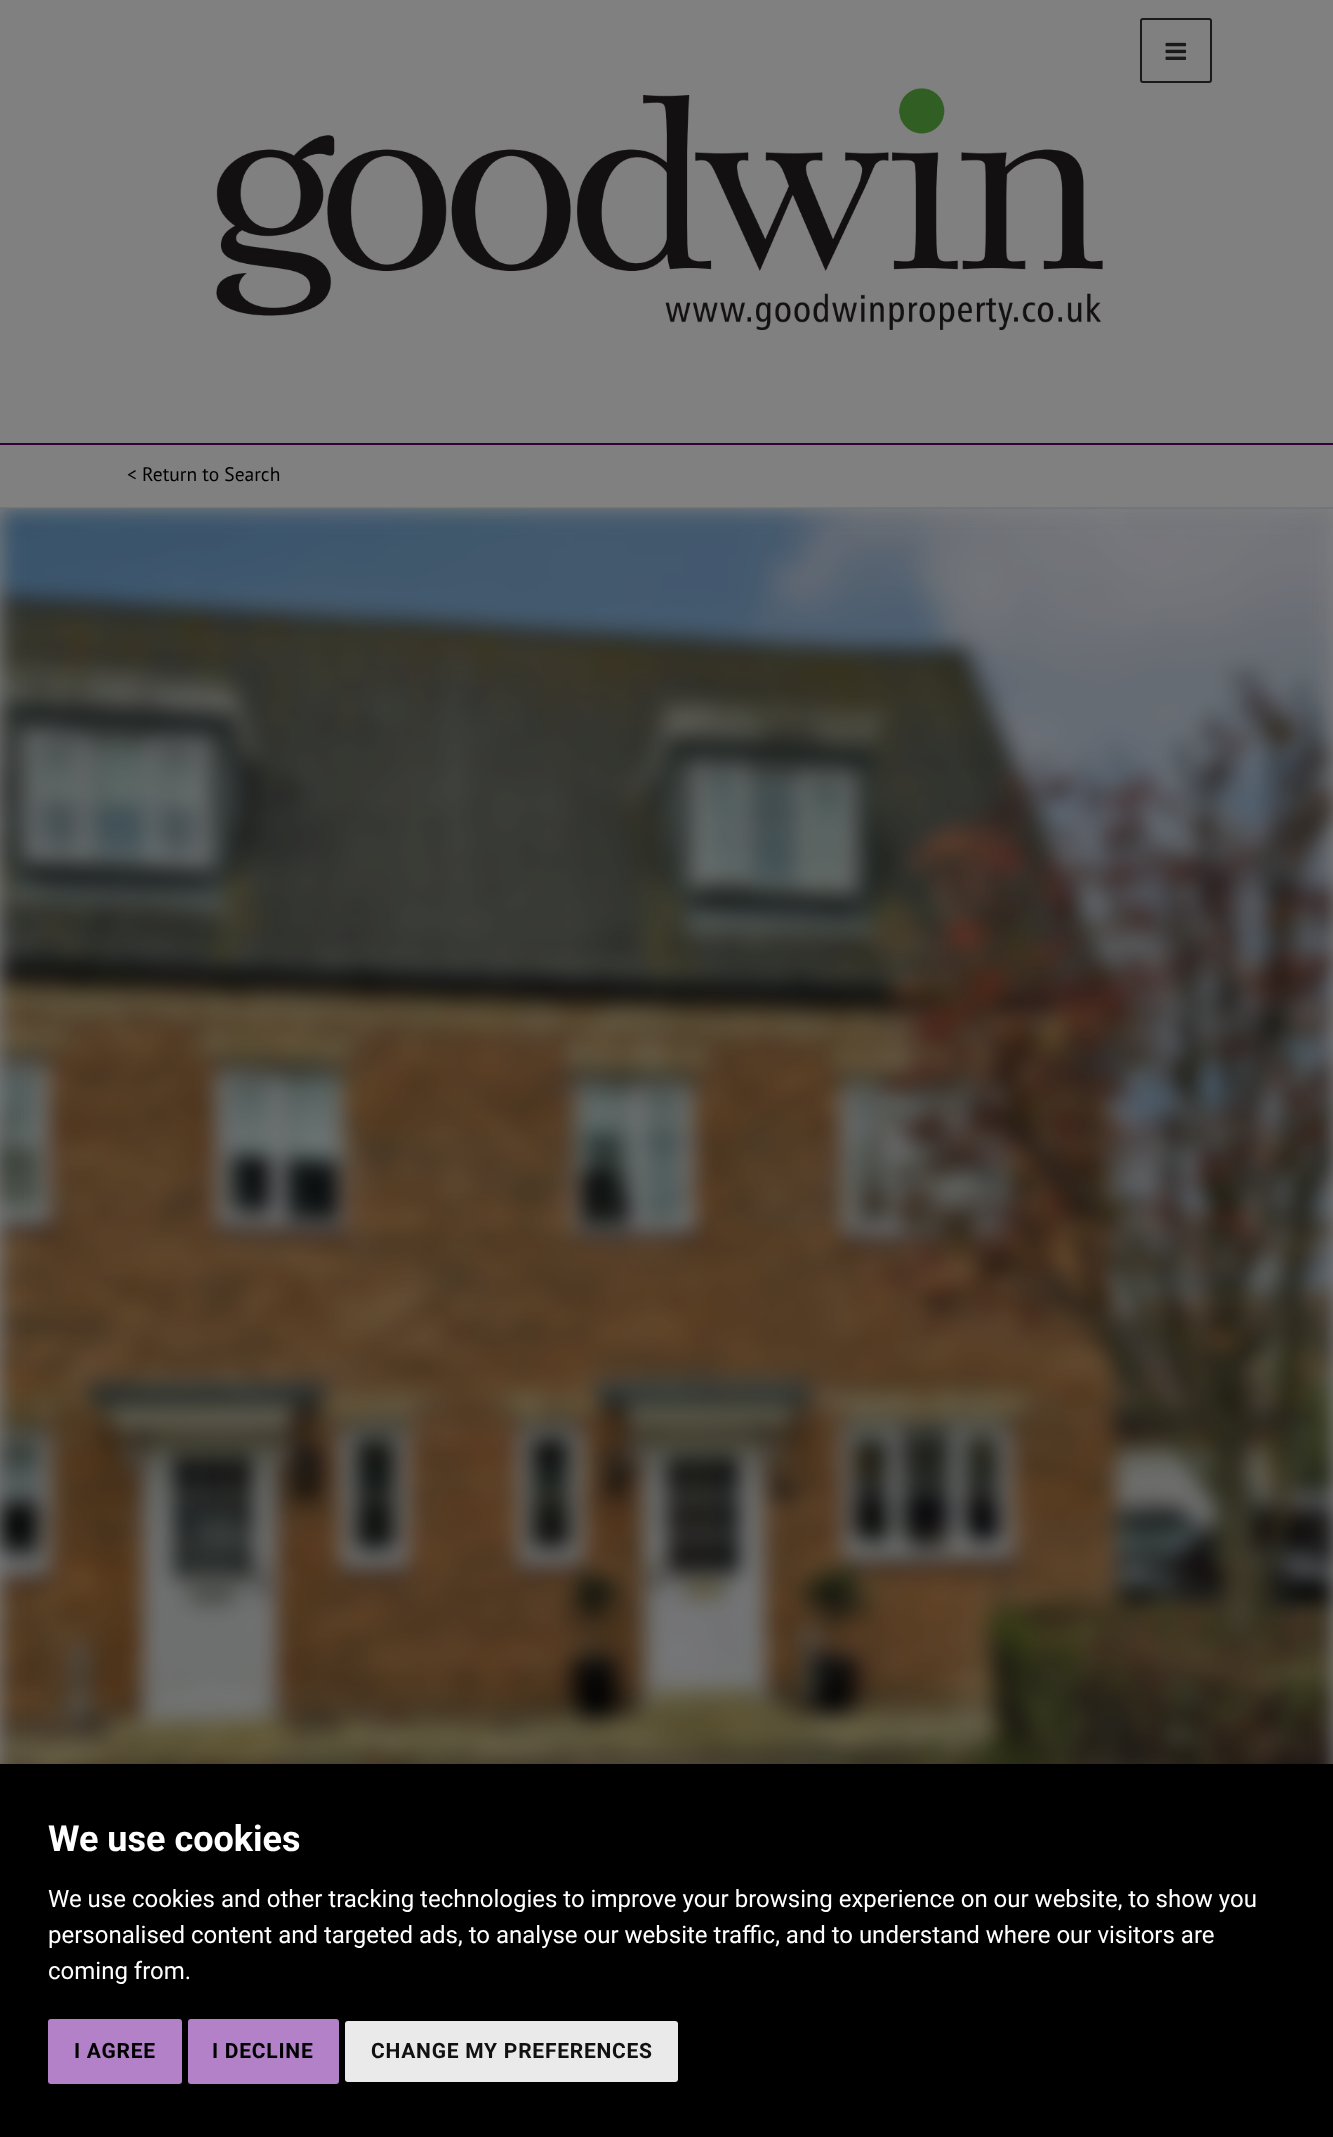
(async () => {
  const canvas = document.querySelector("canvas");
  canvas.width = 1333;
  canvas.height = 2137;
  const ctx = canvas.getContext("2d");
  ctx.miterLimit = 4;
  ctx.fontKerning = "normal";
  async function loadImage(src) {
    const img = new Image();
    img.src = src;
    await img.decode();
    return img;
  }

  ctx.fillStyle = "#808080";
  ctx.fillRect(0, 0, 1333, 2137);
  ctx.fillStyle = "#340236";
  ctx.fillRect(0, 443, 1333, 2);
  ctx.beginPath();
  ctx.roundRect(1141, 19, 70, 63, 2);
  ctx.strokeStyle = "#1a1a1a";
  ctx.lineWidth = 2;
  ctx.stroke();
  ctx.drawImage(await loadImage("img/1.png"), 1165, 42, 22, 18);
  ctx.drawImage(await loadImage("img/2.png"), 216, 88, 887, 243);
  ctx.fillStyle = "#707777";
  ctx.fillRect(0, 507, 1333, 2);
  ctx.drawImage(await loadImage("img/3.png"), 0, 508, 1333, 1256);
  ctx.fillStyle = "#000000";
  ctx.fillRect(0, 1764, 1333, 373);
  ctx.fillStyle = "#b381c8";
  ctx.beginPath();
  ctx.roundRect(48, 2019, 134, 65, 3);
  ctx.fill();
  ctx.beginPath();
  ctx.roundRect(188, 2019, 151, 65, 3);
  ctx.fill();
  ctx.fillStyle = "#eaeaea";
  ctx.beginPath();
  ctx.roundRect(345, 2021, 333, 61, 3);
  ctx.fill();
  ctx.font = "19.5px PT Sans";
  ctx.fillStyle = "#000000";
  ctx.fillText("< Return to Search", 127, 481);
  ctx.font = "bold 36px Roboto";
  ctx.fillStyle = "#ffffff";
  ctx.fillText("We use cookies", 48, 1851);
  ctx.font = "24px Roboto";
  for (const [text, x, y] of [
    ["We use cookies and other tracking technologies to improve your browsing experience on our website, to show you", 48, 1907],
    ["personalised content and targeted ads, to analyse our website traffic, and to understand where our visitors are", 48, 1943],
    ["coming from.", 48, 1979],
  ]) {
    ctx.fillText(text, x, y);
  }
  ctx.letterSpacing = "0.75px";
  ctx.font = "bold 21px Roboto";
  ctx.fillStyle = "#000000";
  ctx.fillText("I AGREE", 74, 2058);
  ctx.fillText("I DECLINE", 212, 2058);
  ctx.fillStyle = "#111111";
  ctx.fillText("CHANGE MY PREFERENCES", 371, 2058);
})();
